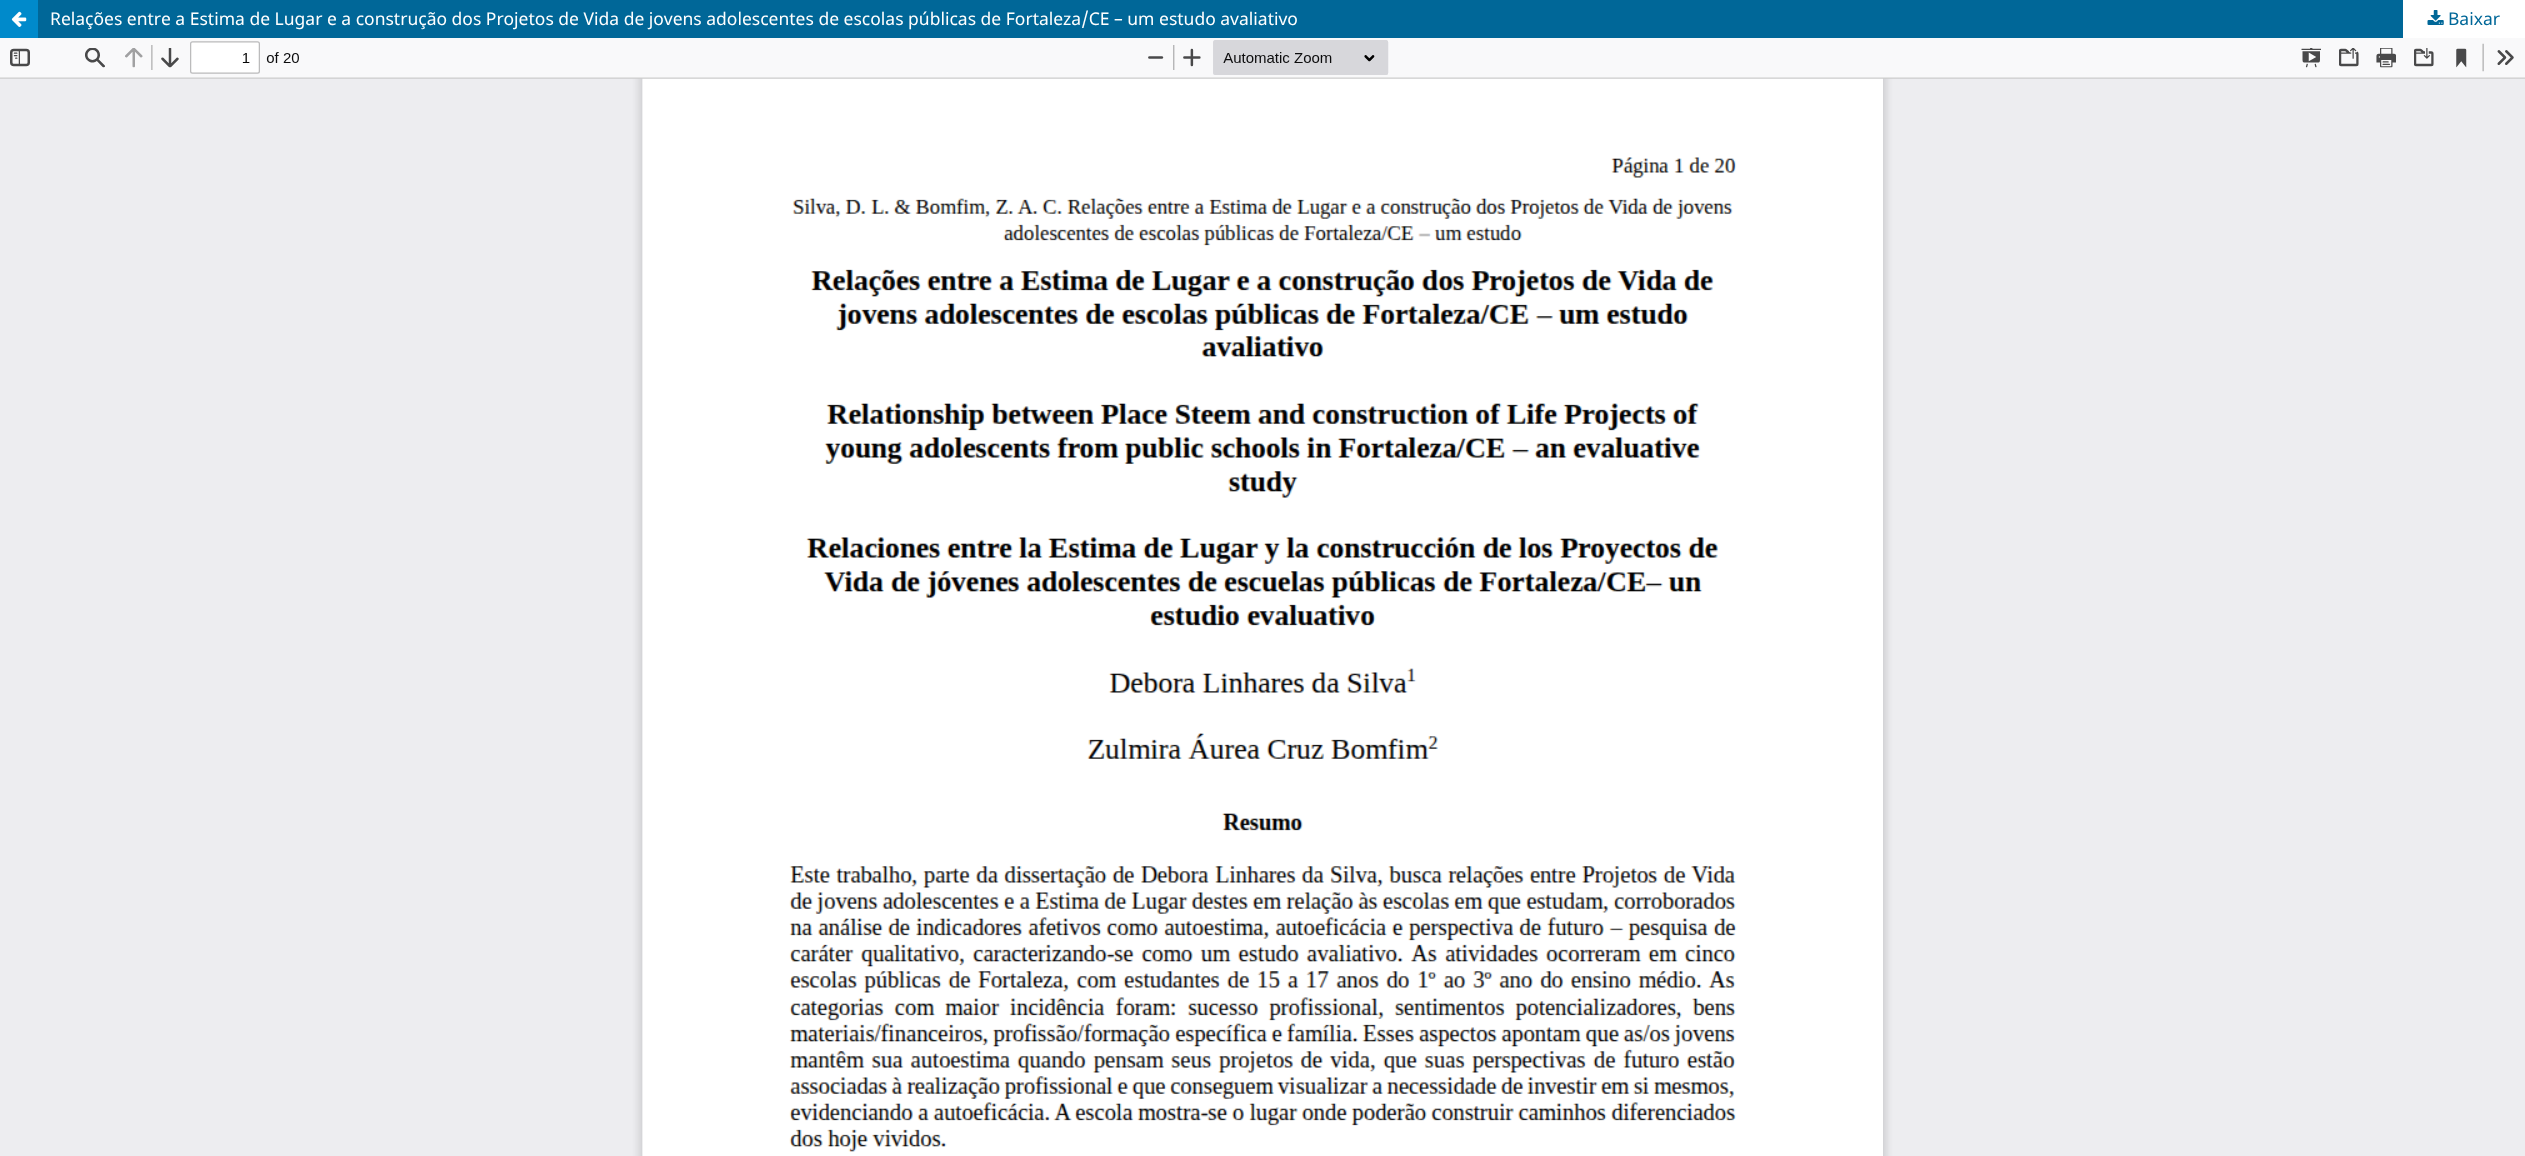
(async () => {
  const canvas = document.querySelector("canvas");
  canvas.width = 2525;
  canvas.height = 1156;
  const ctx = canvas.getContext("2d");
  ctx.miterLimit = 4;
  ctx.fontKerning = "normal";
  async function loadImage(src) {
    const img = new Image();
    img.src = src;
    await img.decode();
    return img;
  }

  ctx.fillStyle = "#ffffff";
  ctx.fillRect(0, 0, 2525, 1156);
  ctx.fillStyle = "#006798";
  ctx.fillRect(38, 0, 2365, 38);
  ctx.fillStyle = "#008acb";
  ctx.fillRect(0, 0, 38, 38);
  ctx.drawImage(await loadImage("img/1.png"), 11, 11, 16, 16);
  ctx.drawImage(await loadImage("img/2.png"), 2427, 10, 17, 15);
  ctx.drawImage(await loadImage("img/3.png"), 0, 38, 2525, 1118);
  ctx.font = "17.5px Noto Sans";
  ctx.fillStyle = "#ffffff";
  ctx.fillText("Relações entre a Estima de Lugar e a construção dos Projetos de Vida de jovens adolescentes de escolas públicas de Fortaleza/CE – um estudo avaliativo", 50, 25);
  ctx.fillStyle = "#006798";
  ctx.fillText("Baixar", 2448, 25);
})();
